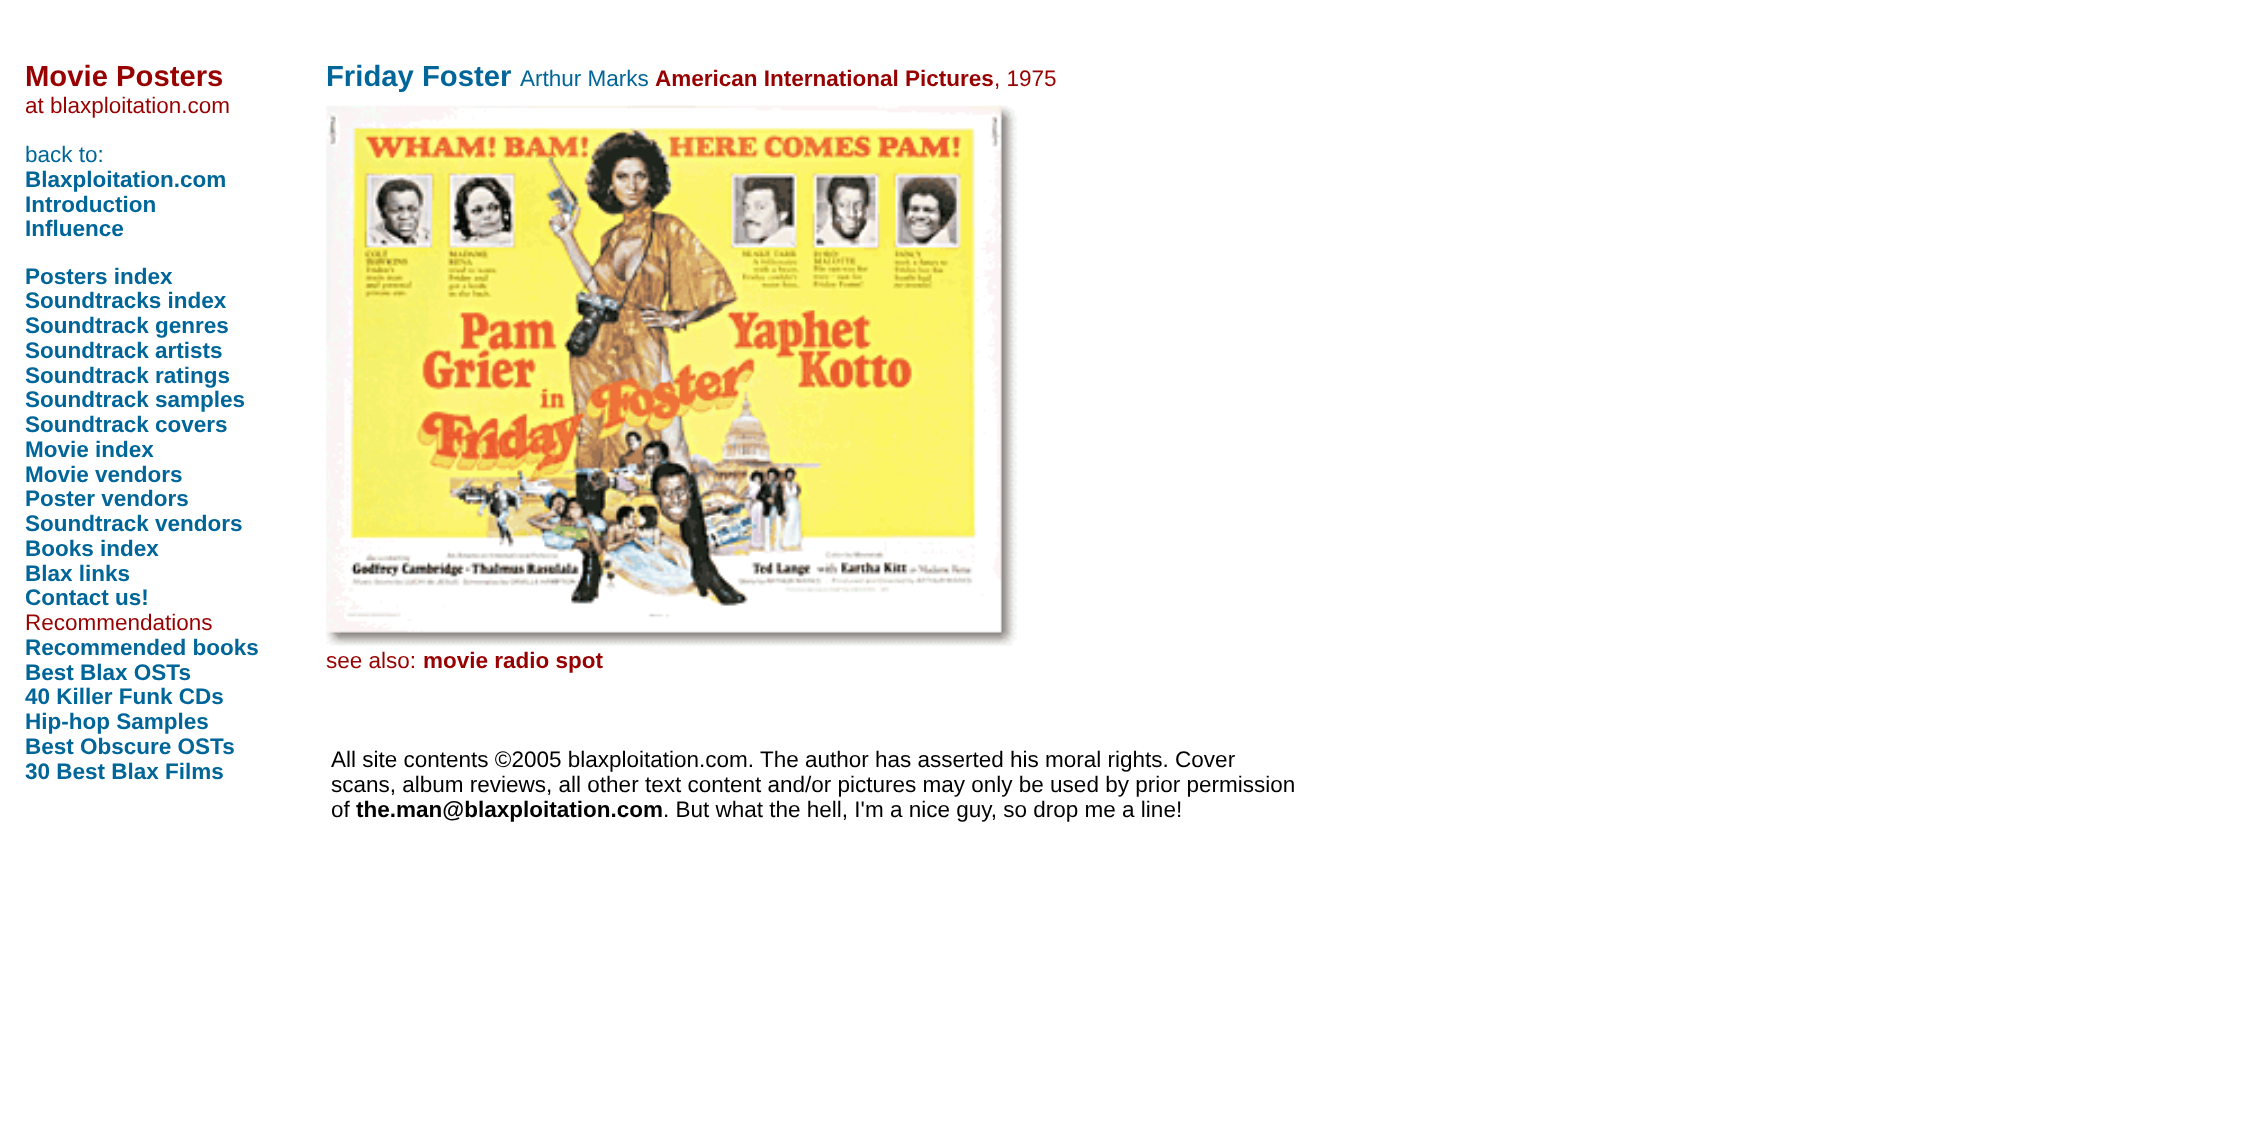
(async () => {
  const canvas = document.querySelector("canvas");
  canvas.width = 2266;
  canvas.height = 1123;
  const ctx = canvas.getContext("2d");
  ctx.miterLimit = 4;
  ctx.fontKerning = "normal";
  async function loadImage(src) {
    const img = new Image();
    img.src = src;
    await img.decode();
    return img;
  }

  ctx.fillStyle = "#ffffff";
  ctx.fillRect(0, 0, 2266, 1123);
  ctx.drawImage(await loadImage("img/1.png"), 326, 105, 691, 541);
  ctx.font = "bold 29.25px Liberation Sans";
  ctx.fillStyle = "#980101";
  ctx.fillText("Movie Posters", 25, 86);
  ctx.font = "22.5px Liberation Sans";
  ctx.fillText("at blaxploitation.com", 25, 113);
  ctx.fillStyle = "#006699";
  ctx.fillText("back to:", 25, 162);
  ctx.font = "bold 22.5px Liberation Sans";
  for (const [text, x, y] of [
    ["Blaxploitation.com", 25, 187],
    ["Introduction", 25, 212],
    ["Influence", 25, 236],
    ["Posters index", 25, 284],
    ["Soundtracks index", 25, 308],
    ["Soundtrack genres", 25, 333],
    ["Soundtrack artists", 25, 358],
    ["Soundtrack ratings", 25, 383],
    ["Soundtrack samples", 25, 407],
    ["Soundtrack covers", 25, 432],
    ["Movie index", 25, 457],
    ["Movie vendors", 25, 482],
    ["Poster vendors", 25, 506],
    ["Soundtrack vendors", 25, 531],
    ["Books index", 25, 556],
    ["Blax links", 25, 581],
    ["Contact us!", 25, 605],
  ]) {
    ctx.fillText(text, x, y);
  }
  ctx.font = "22.5px Liberation Sans";
  ctx.fillStyle = "#980101";
  ctx.fillText("Recommendations", 25, 630);
  ctx.font = "bold 22.5px Liberation Sans";
  ctx.fillStyle = "#006699";
  for (const [text, x, y] of [
    ["Recommended books", 25, 655],
    ["Best Blax OSTs", 25, 680],
    ["40 Killer Funk CDs", 25, 704],
    ["Hip-hop Samples", 25, 729],
    ["Best Obscure OSTs", 25, 754],
    ["30 Best Blax Films", 25, 779],
  ]) {
    ctx.fillText(text, x, y);
  }
  ctx.font = "bold 29.25px Liberation Sans";
  ctx.fillText("Friday Foster", 326, 86);
  ctx.font = "22.5px Liberation Sans";
  ctx.fillText("Arthur Marks", 520, 86);
  ctx.font = "bold 22.5px Liberation Sans";
  ctx.fillStyle = "#980101";
  ctx.fillText("American International Pictures", 655, 86);
  ctx.font = "22.5px Liberation Sans";
  ctx.fillText(", 1975", 994, 86);
  ctx.fillText("see also:", 326, 668);
  ctx.font = "bold 22.5px Liberation Sans";
  ctx.fillText("movie radio spot", 423, 668);
  ctx.font = "22.5px Liberation Sans";
  ctx.fillStyle = "#000000";
  for (const [text, x, y] of [
    ["All site contents ©2005 blaxploitation.com. The author has asserted his moral rights. Cover", 331, 767],
    ["scans, album reviews, all other text content and/or pictures may only be used by prior permission", 331, 792],
    ["of", 331, 817],
  ]) {
    ctx.fillText(text, x, y);
  }
  ctx.font = "bold 22.5px Liberation Sans";
  ctx.fillText("the.man@blaxploitation.com", 356, 817);
  ctx.font = "22.5px Liberation Sans";
  ctx.fillText(". But what the hell, I'm a nice guy, so drop me a line!", 663, 817);
})();
